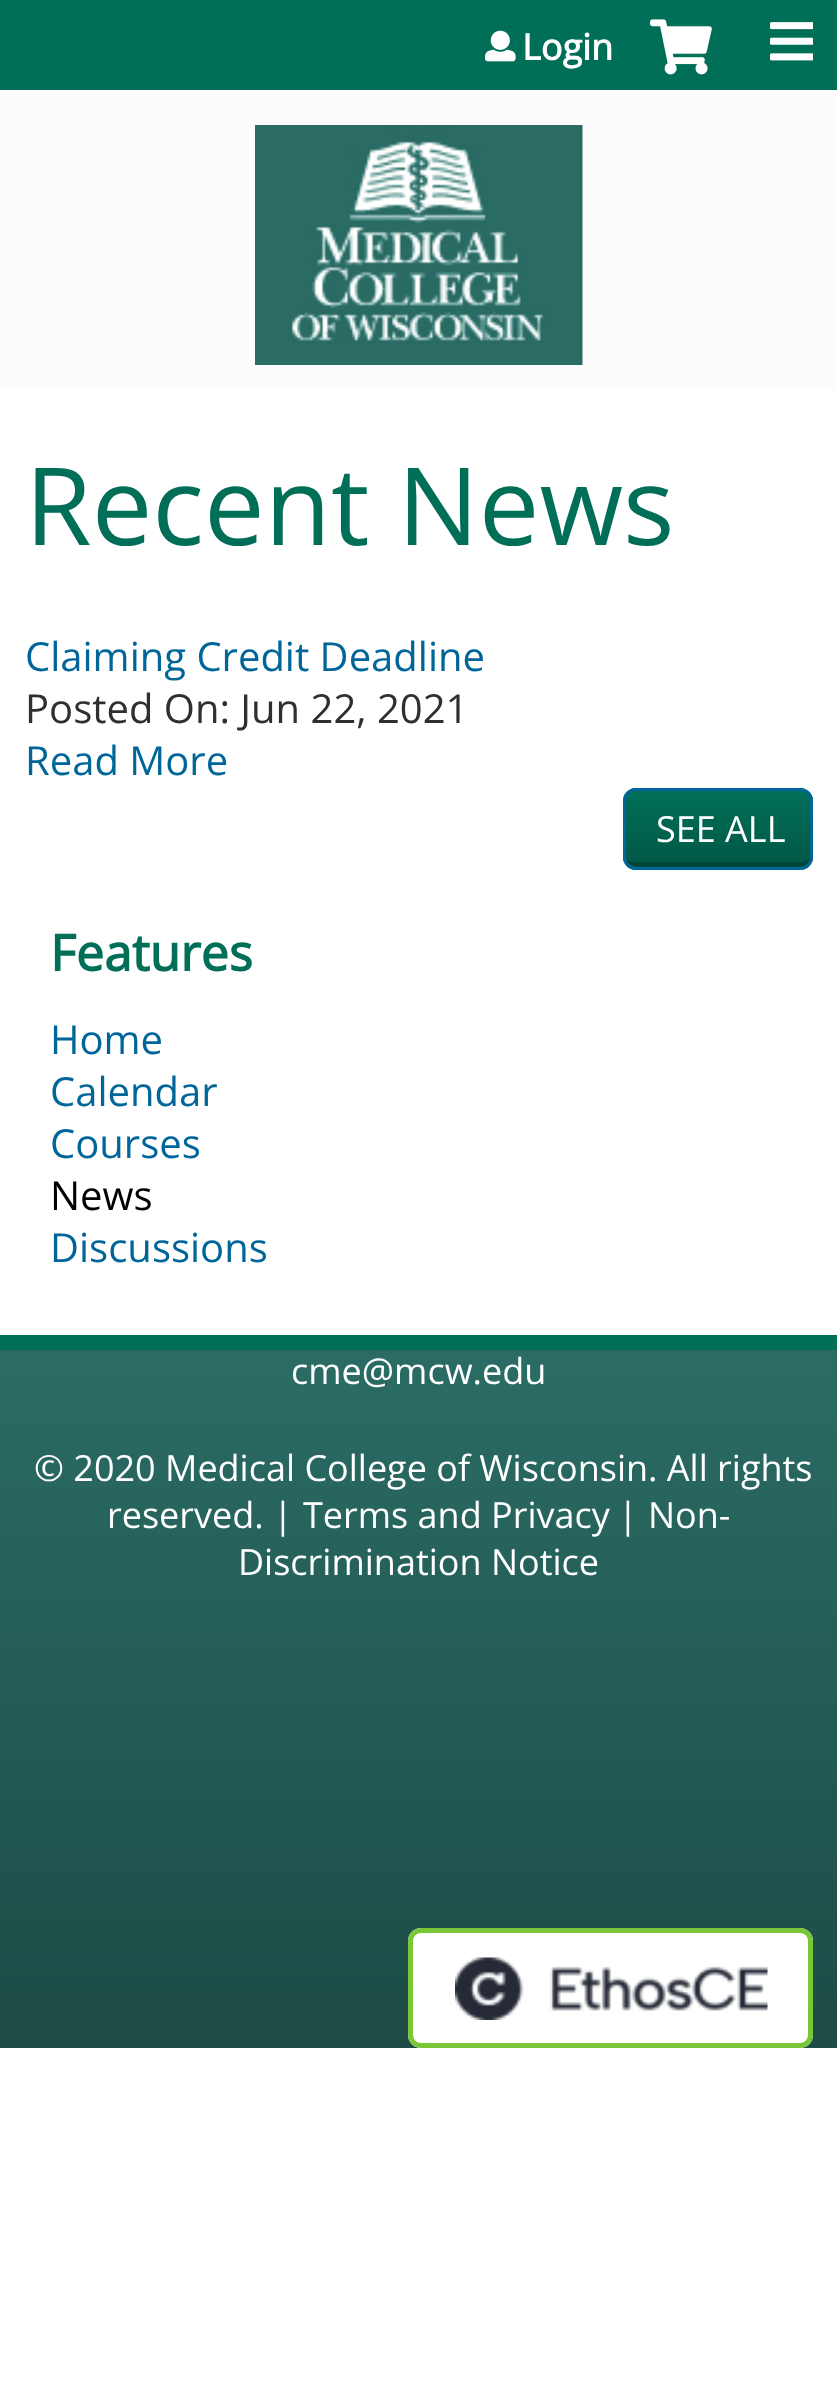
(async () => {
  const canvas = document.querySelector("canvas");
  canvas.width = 837;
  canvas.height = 2401;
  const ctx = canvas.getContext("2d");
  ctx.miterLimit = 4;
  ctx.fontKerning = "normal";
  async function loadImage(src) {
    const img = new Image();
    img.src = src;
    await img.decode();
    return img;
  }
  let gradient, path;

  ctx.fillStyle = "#ffffff";
  ctx.fillRect(0, 0, 837, 2401);
  ctx.fillStyle = "#fcfcfc";
  ctx.fillRect(0, 90, 837, 300);
  ctx.fillStyle = "#016e57";
  ctx.fillRect(0, 0, 837, 90);
  ctx.drawImage(await loadImage("img/1.png"), 485, 30, 31, 32);
  ctx.drawImage(await loadImage("img/2.png"), 650, 19, 62, 56);
  ctx.drawImage(await loadImage("img/3.png"), 770, 22, 43, 39);
  ctx.drawImage(await loadImage("img/4.png"), 255, 125, 328, 240);
  ctx.beginPath();
  ctx.roundRect(623, 788, 190, 82, 13);
  ctx.fill();
  ctx.save();
  ctx.beginPath();
  ctx.roundRect(623, 788, 190, 82, 13);
  ctx.clip();
  gradient = ctx.createLinearGradient(718, 868, 718, 790);
  gradient.addColorStop(0, "rgba(0, 0, 0, 0.2)");
  gradient.addColorStop(1, "rgba(0, 0, 0, 0)");
  ctx.fillStyle = gradient;
  ctx.fillRect(623, 798, 190, 70);
  ctx.restore();
  ctx.fillStyle = "rgba(0, 0, 0, 0.2)";
  path = new Path2D("M625 858C625 864 629 868 635 868H800C806 868 810 864 810 858V857C808 860 804 862 800 862H635C631 862 627 860 625 858Z");
  ctx.fill(path);
  ctx.beginPath();
  ctx.roundRect(624.5, 789.5, 187, 79, 11.5);
  ctx.strokeStyle = "#006699";
  ctx.lineWidth = 3;
  ctx.stroke();
  gradient = ctx.createLinearGradient(419, 2048, 419, 1350);
  gradient.addColorStop(0, "#1d4b46");
  gradient.addColorStop(1, "#2a6c64");
  ctx.fillStyle = gradient;
  ctx.fillRect(0, 1350, 837, 698);
  ctx.fillStyle = "#016e57";
  ctx.fillRect(0, 1335, 837, 15);
  ctx.fillStyle = "#ffffff";
  ctx.beginPath();
  ctx.roundRect(408, 1928, 405, 120, 13);
  ctx.fill();
  ctx.drawImage(await loadImage("img/5.png"), 455, 1957, 313, 63);
  ctx.beginPath();
  ctx.roundRect(410.5, 1930.5, 400, 115, 10.5);
  ctx.strokeStyle = "#7ac637";
  ctx.lineWidth = 5;
  ctx.stroke();
  ctx.font = "bold 36px Open Sans";
  ctx.fillText("Login", 522, 60);
  ctx.font = "108px Open Sans";
  ctx.fillStyle = "#016e57";
  ctx.fillText("Recent News", 25, 545);
  ctx.font = "40px Open Sans";
  ctx.fillStyle = "#006699";
  ctx.fillText("Claiming Credit Deadline", 25, 671);
  ctx.fillStyle = "#2f2f2f";
  ctx.fillText("Posted On: Jun 22, 2021", 25, 723);
  ctx.fillStyle = "#006699";
  ctx.fillText("Read More", 25, 775);
  ctx.font = "36px Open Sans";
  ctx.fillStyle = "#ffffff";
  ctx.fillText("SEE ALL", 656, 842);
  ctx.font = "bold 50px Open Sans";
  ctx.fillStyle = "#016e57";
  ctx.fillText("Features", 50, 971);
  ctx.font = "40px Open Sans";
  ctx.fillStyle = "#006699";
  for (const [text, x, y] of [
    ["Home", 50, 1054],
    ["Calendar", 50, 1106],
    ["Courses", 50, 1158],
  ]) {
    ctx.fillText(text, x, y);
  }
  ctx.fillStyle = "#000000";
  ctx.fillText("News", 50, 1210);
  ctx.fillStyle = "#006699";
  ctx.fillText("Discussions", 50, 1262);
  ctx.font = "36px Open Sans";
  ctx.fillStyle = "#ffffff";
  for (const [text, x, y] of [
    ["cme@mcw.edu", 291, 1384],
    ["© 2020", 34, 1481],
    ["Medical College of Wisconsin", 165, 1481],
    [". All rights", 648, 1481],
    ["reserved. |", 107, 1528],
    ["Terms and Privacy", 303, 1528],
    ["|", 618, 1528],
    ["Non-", 648, 1528],
    ["Discrimination Notice", 238, 1575],
  ]) {
    ctx.fillText(text, x, y);
  }
})();
